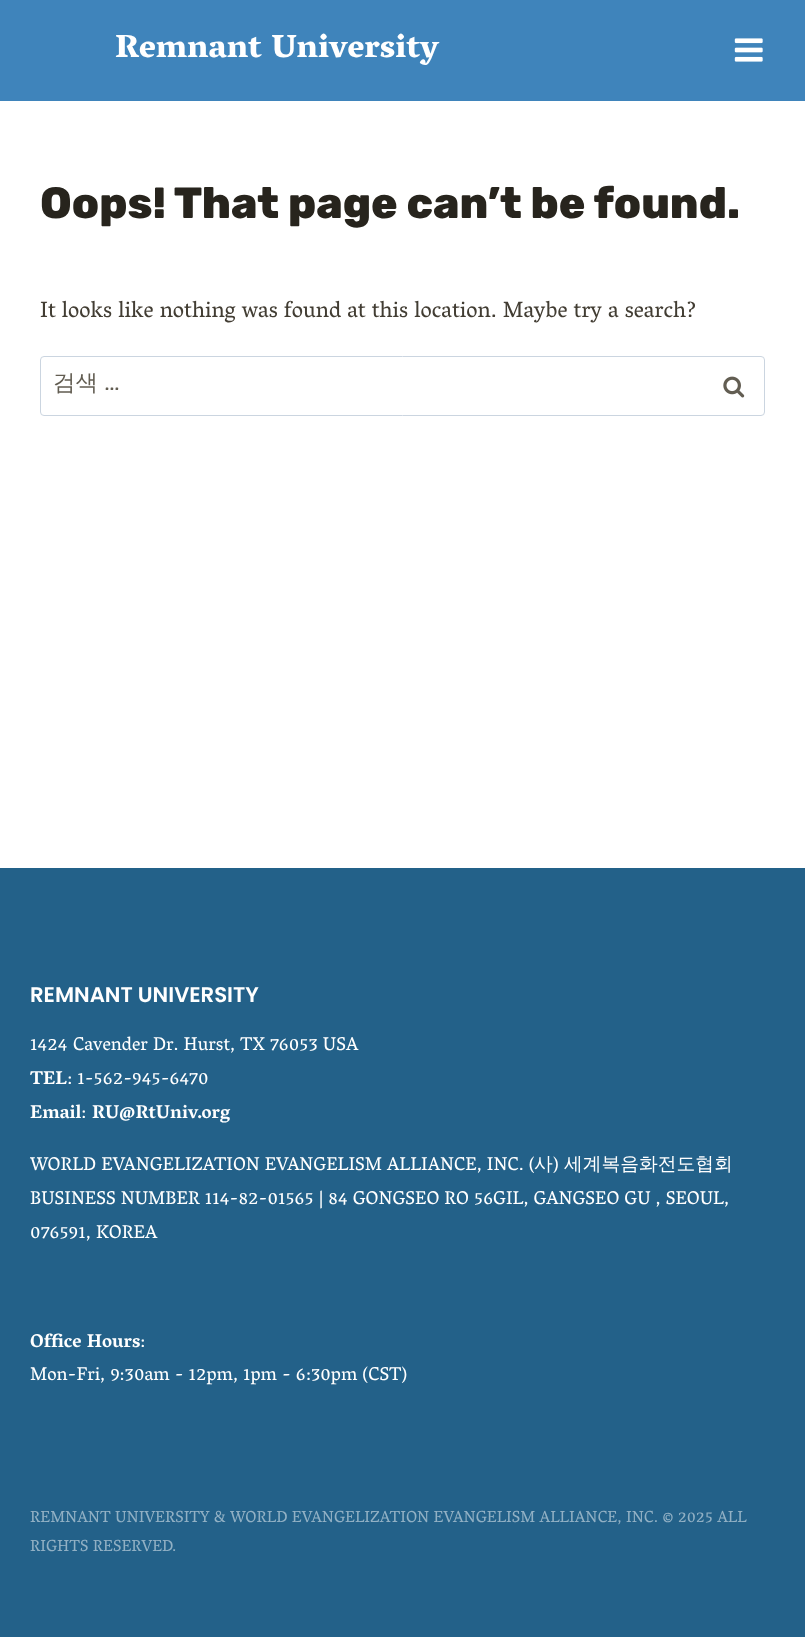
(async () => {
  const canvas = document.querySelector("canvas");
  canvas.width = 805;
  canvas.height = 1637;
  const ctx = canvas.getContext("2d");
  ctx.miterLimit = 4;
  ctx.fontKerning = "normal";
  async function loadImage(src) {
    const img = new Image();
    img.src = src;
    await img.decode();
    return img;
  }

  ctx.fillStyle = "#ffffff";
  ctx.fillRect(0, 0, 805, 1637);
  ctx.fillStyle = "#3f84bb";
  ctx.fillRect(0, 0, 805, 101);
  ctx.drawImage(await loadImage("img/1.png"), 734, 38, 29, 24);
  ctx.beginPath();
  ctx.roundRect(40.5, 356.5, 724, 59, 3.5);
  ctx.strokeStyle = "#cbd5e0";
  ctx.stroke();
  ctx.drawImage(await loadImage("img/2.png"), 723, 376, 22, 22);
  ctx.fillStyle = "#236189";
  ctx.fillRect(0, 868, 805, 769);
  ctx.font = "900 32.5px Vesper Libre";
  ctx.fillStyle = "#ffffff";
  ctx.fillText("Remnant University", 115, 57);
  ctx.font = "800 43.75px Rubik";
  ctx.fillStyle = "#27241d";
  ctx.fillText("Oops! That page can’t be found.", 40, 218);
  ctx.font = "22.5px Vesper Libre";
  ctx.fillStyle = "#423d33";
  ctx.fillText("It looks like nothing was found at this location. Maybe try a search?", 40, 317);
  ctx.font = "500 22.5px WenQuanYi Zen Hei";
  ctx.fillStyle = "#625d52";
  ctx.fillText("검색", 53, 390);
  ctx.font = "22.5px Vesper Libre";
  ctx.fillText("…", 104, 390);
  ctx.font = "600 21.25px Poppins";
  ctx.fillStyle = "#ffffff";
  ctx.fillText("REMNANT UNIVERSITY", 30, 1002);
  ctx.font = "18.75px Vesper Libre";
  ctx.fillText("1424 Cavender Dr. Hurst, TX 76053 USA", 30, 1050);
  ctx.font = "bold 18.75px Vesper Libre";
  ctx.fillText("TEL", 30, 1084);
  ctx.font = "18.75px Vesper Libre";
  ctx.fillText(": 1-562-945-6470", 67, 1084);
  ctx.font = "bold 18.75px Vesper Libre";
  ctx.fillText("Email", 30, 1118);
  ctx.font = "18.75px Vesper Libre";
  ctx.fillText(":", 81, 1118);
  ctx.font = "bold 18.75px Vesper Libre";
  ctx.fillText("RU@RtUniv.org", 92, 1118);
  ctx.font = "18.75px Vesper Libre";
  ctx.fillText("WORLD EVANGELIZATION EVANGELISM ALLIANCE, INC. (", 30, 1170);
  ctx.font = "500 18.75px WenQuanYi Zen Hei";
  ctx.fillText("사", 534, 1170);
  ctx.font = "18.75px Vesper Libre";
  ctx.fillText(")", 553, 1170);
  ctx.font = "500 18.75px WenQuanYi Zen Hei";
  ctx.fillText("세계복음화전도협회", 564, 1170);
  ctx.font = "18.75px Vesper Libre";
  ctx.fillText("BUSINESS NUMBER 114-82-01565 | 84 GONGSEO RO 56GIL, GANGSEO GU , SEOUL,", 30, 1204);
  ctx.fillText("076591, KOREA", 30, 1238);
  ctx.font = "bold 18.75px Vesper Libre";
  ctx.fillText("Office Hours", 30, 1347);
  ctx.font = "18.75px Vesper Libre";
  ctx.fillText(":", 140, 1347);
  ctx.fillText("Mon-Fri, 9:30am - 12pm, 1pm - 6:30pm (CST)", 30, 1380);
  ctx.font = "16.25px Vesper Libre";
  ctx.fillStyle = "#91b0c4";
  ctx.fillText("REMNANT UNIVERSITY & WORLD EVANGELIZATION EVANGELISM ALLIANCE, INC. © 2025 ALL", 30, 1522);
  ctx.fillText("RIGHTS RESERVED.", 30, 1551);
})();
